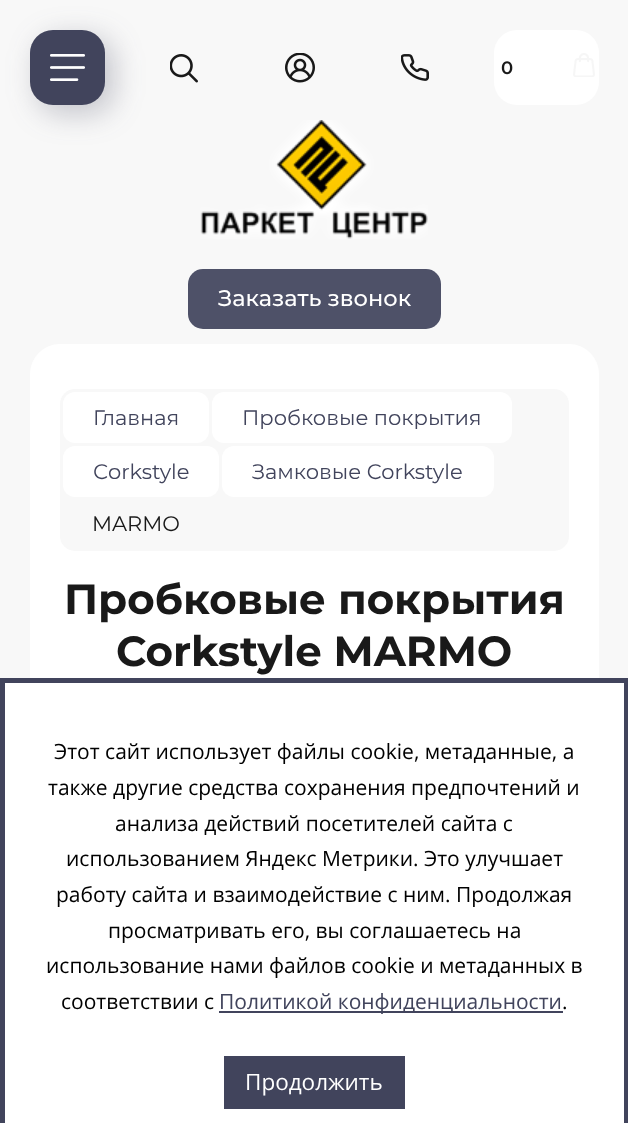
(async () => {
  const canvas = document.querySelector("canvas");
  canvas.width = 628;
  canvas.height = 1123;
  const ctx = canvas.getContext("2d");
  ctx.miterLimit = 4;
  ctx.fontKerning = "normal";
  async function loadImage(src) {
    const img = new Image();
    img.src = src;
    await img.decode();
    return img;
  }

  ctx.fillStyle = "#f8f8f8";
  ctx.fillRect(0, 0, 628, 1123);
  ctx.fillStyle = "rgba(65, 68, 92, 0.3)";
  ctx.filter = "blur(15px)";
  ctx.beginPath();
  ctx.roundRect(38, 38, 75, 75, 23);
  ctx.fill();
  ctx.filter = "none";
  ctx.fillStyle = "#41445c";
  ctx.beginPath();
  ctx.roundRect(30, 30, 75, 75, 23);
  ctx.fill();
  ctx.drawImage(await loadImage("img/1.png"), 50, 54, 35, 27);
  ctx.drawImage(await loadImage("img/2.png"), 170, 54, 28, 29);
  ctx.drawImage(await loadImage("img/3.png"), 285, 53, 30, 30);
  ctx.drawImage(await loadImage("img/4.png"), 401, 54, 28, 27);
  ctx.fillStyle = "#ffffff";
  ctx.beginPath();
  ctx.roundRect(494, 30, 105, 75, 23);
  ctx.fill();
  ctx.drawImage(await loadImage("img/5.png"), 573, 53, 22, 24);
  ctx.drawImage(await loadImage("img/6.png"), 200, 120, 228, 119);
  ctx.fillStyle = "#4e5168";
  ctx.beginPath();
  ctx.roundRect(188, 269, 253, 60, 15);
  ctx.fill();
  ctx.fillStyle = "#ffffff";
  ctx.beginPath();
  ctx.roundRect(30, 344, 569, 354, [30, 30, 0, 0]);
  ctx.fill();
  ctx.fillStyle = "#f8f8f8";
  ctx.beginPath();
  ctx.roundRect(60, 389, 509, 162, 15);
  ctx.fill();
  ctx.fillStyle = "#ffffff";
  ctx.beginPath();
  ctx.roundRect(63, 392, 146, 51, 12);
  ctx.fill();
  ctx.beginPath();
  ctx.roundRect(212, 392, 300, 51, 12);
  ctx.fill();
  ctx.beginPath();
  ctx.roundRect(63, 446, 156, 51, 12);
  ctx.fill();
  ctx.beginPath();
  ctx.roundRect(222, 446, 272, 51, 12);
  ctx.fill();
  for (const [x, y, w, h, color] of [
    [5, 683, 619, 440, "#ffffff"],
    [0, 678, 628, 5, "#41445c"],
    [624, 678, 4, 445, "#41445c"],
    [0, 678, 5, 445, "#41445c"],
    [219, 1011, 344, 2, "#41445c"],
    [224, 1056, 181, 53, "#41445c"],
  ]) {
    ctx.fillStyle = color;
    ctx.fillRect(x, y, w, h);
  }
  ctx.font = "600 18px Montserrat";
  ctx.fillStyle = "#191919";
  ctx.fillText("0", 501, 74);
  ctx.font = "500 22.5px Montserrat";
  ctx.fillStyle = "#ffffff";
  ctx.fillText("Заказать звонок", 218, 306);
  ctx.font = "21px Montserrat";
  ctx.fillStyle = "#41445c";
  for (const [text, x, y] of [
    ["Главная", 93, 425],
    ["Пробковые покрытия", 242, 425],
    ["Сorkstyle", 93, 479],
    ["Замковые Corkstyle", 252, 479],
  ]) {
    ctx.fillText(text, x, y);
  }
  ctx.fillStyle = "#191919";
  ctx.fillText("MARMO", 92, 531);
  ctx.font = "bold 42px Montserrat";
  ctx.fillText("Пробковые покрытия", 64, 614);
  ctx.fillText("Corkstyle MARMO", 116, 666);
  ctx.font = "21px Open Sans";
  ctx.fillStyle = "#000000";
  for (const [text, x, y] of [
    ["Этот сайт использует файлы cookie, метаданные, а", 54, 759],
    ["также другие средства сохранения предпочтений и", 48, 795],
    ["анализа действий посетителей сайта с", 115, 831],
    ["использованием Яндекс Метрики. Это улучшает", 66, 866],
    ["работу сайта и взаимодействие с ним. Продолжая", 56, 902],
    ["просматривать его, вы соглашаетесь на", 108, 938],
    ["использование нами файлов cookie и метаданных в", 46, 973],
    ["соответствии с", 61, 1009],
  ]) {
    ctx.fillText(text, x, y);
  }
  ctx.fillStyle = "#41445c";
  ctx.fillText("Политикой конфиденциальности", 219, 1009);
  ctx.fillStyle = "#000000";
  ctx.fillText(".", 562, 1009);
  ctx.font = "22.5px Open Sans";
  ctx.fillStyle = "#ffffff";
  ctx.fillText("Продолжить", 245, 1090);
})();
